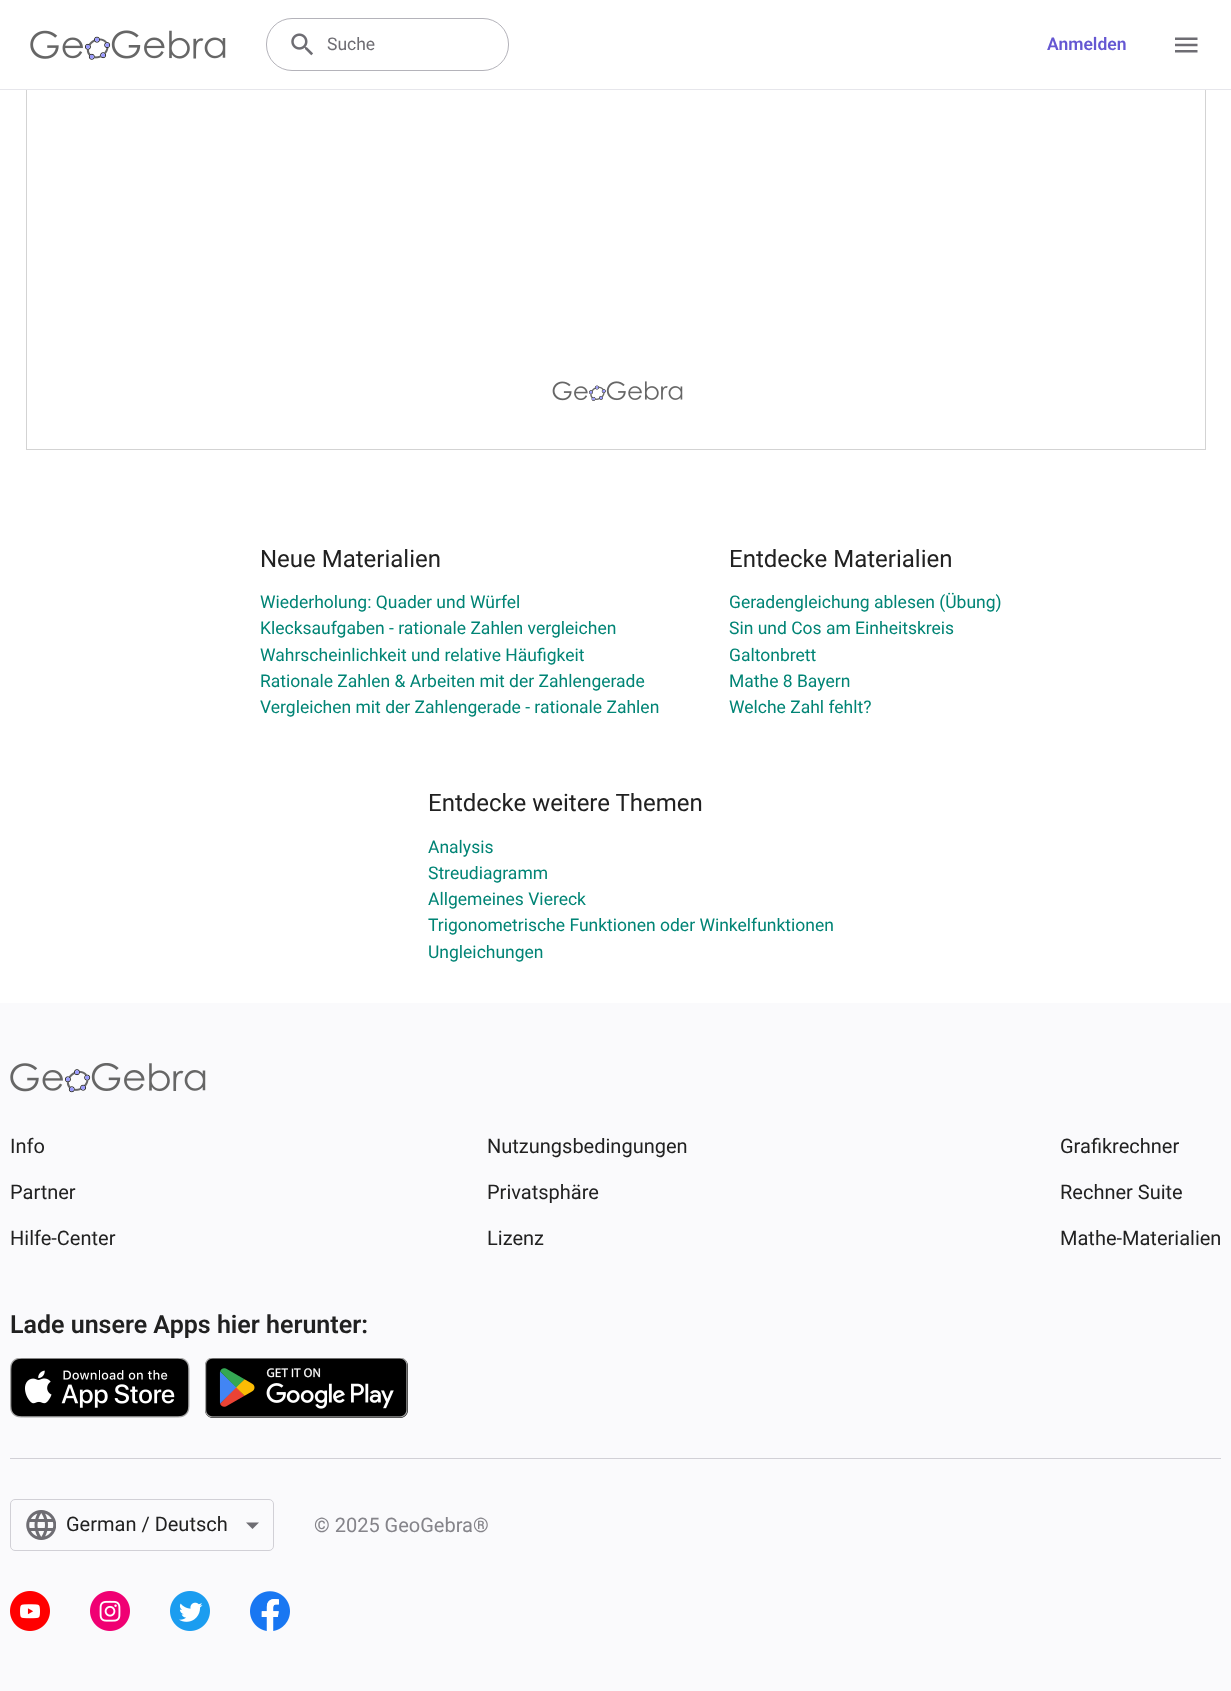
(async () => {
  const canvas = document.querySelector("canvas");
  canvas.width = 1231;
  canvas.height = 1691;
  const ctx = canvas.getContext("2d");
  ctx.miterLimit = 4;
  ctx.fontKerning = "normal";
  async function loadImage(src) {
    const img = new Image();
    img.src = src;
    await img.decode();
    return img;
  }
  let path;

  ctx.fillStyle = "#ffffff";
  ctx.fillRect(0, 0, 1231, 1691);
  ctx.drawImage(await loadImage("img/4.png"), 552, 381, 131, 20);
  ctx.strokeStyle = "#d3d3d3";
  ctx.strokeRect(26.5, -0.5, 1179, 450);
  ctx.fillRect(26, 0, 1180, 89);
  ctx.fillStyle = "#e6e6eb";
  ctx.fillRect(0, 89, 1231, 1);
  ctx.drawImage(await loadImage("img/1.png"), 30, 30, 196, 30);
  ctx.beginPath();
  ctx.roundRect(266.5, 18.5, 242, 52, 25.5);
  ctx.strokeStyle = "#b4b3ba";
  ctx.stroke();
  ctx.drawImage(await loadImage("img/2.png"), 291, 33, 22, 23);
  ctx.drawImage(await loadImage("img/3.png"), 1175, 37, 23, 16);
  ctx.fillStyle = "#fafafc";
  ctx.fillRect(0, 1003, 1231, 688);
  ctx.drawImage(await loadImage("img/5.png"), 10, 1063, 196, 30);
  ctx.drawImage(await loadImage("img/6.png"), 10, 1358, 180, 60);
  ctx.drawImage(await loadImage("img/7.png"), 205, 1358, 203, 60);
  ctx.fillStyle = "#d1d0d6";
  ctx.fillRect(10, 1458, 1211, 1);
  ctx.beginPath();
  ctx.roundRect(10.5, 1499.5, 263, 51, 4.5);
  ctx.strokeStyle = "#d1d0d6";
  ctx.stroke();
  ctx.drawImage(await loadImage("img/8.png"), 26, 1510, 30, 30);
  ctx.fillStyle = "#6e6d73";
  path = new Path2D("M246 1522.5L252.5 1529L259 1522.5Z");
  ctx.fill(path);
  ctx.drawImage(await loadImage("img/9.png"), 10, 1591, 40, 40);
  ctx.drawImage(await loadImage("img/10.png"), 90, 1591, 40, 40);
  ctx.drawImage(await loadImage("img/11.png"), 170, 1591, 40, 40);
  ctx.drawImage(await loadImage("img/12.png"), 250, 1591, 40, 40);
  ctx.font = "17.5px Roboto";
  ctx.fillText("Suche", 327, 50);
  ctx.font = "600 17.5px Roboto";
  ctx.fillStyle = "#6557d2";
  ctx.fillText("Anmelden", 1047, 50);
  ctx.font = "24px Roboto";
  ctx.fillStyle = "#212121";
  ctx.fillText("Neue Materialien", 260, 567);
  ctx.font = "17.5px Roboto";
  ctx.fillStyle = "#008475";
  for (const [text, x, y] of [
    ["Wiederholung: Quader und Würfel", 260, 608],
    ["Klecksaufgaben - rationale Zahlen vergleichen", 260, 634],
    ["Wahrscheinlichkeit und relative Häufigkeit", 260, 661],
    ["Rationale Zahlen & Arbeiten mit der Zahlengerade", 260, 687],
    ["Vergleichen mit der Zahlengerade - rationale Zahlen", 260, 713],
  ]) {
    ctx.fillText(text, x, y);
  }
  ctx.font = "24px Roboto";
  ctx.fillStyle = "#212121";
  ctx.fillText("Entdecke Materialien", 729, 567);
  ctx.font = "17.5px Roboto";
  ctx.fillStyle = "#008475";
  for (const [text, x, y] of [
    ["Geradengleichung ablesen (Übung)", 729, 608],
    ["Sin und Cos am Einheitskreis", 729, 634],
    ["Galtonbrett", 729, 661],
    ["Mathe 8 Bayern", 729, 687],
    ["Welche Zahl fehlt?", 729, 713],
  ]) {
    ctx.fillText(text, x, y);
  }
  ctx.font = "24px Roboto";
  ctx.fillStyle = "#212121";
  ctx.fillText("Entdecke weitere Themen", 428, 811);
  ctx.font = "17.5px Roboto";
  ctx.fillStyle = "#008475";
  for (const [text, x, y] of [
    ["Analysis", 428, 853],
    ["Streudiagramm", 428, 879],
    ["Allgemeines Viereck", 428, 905],
    ["Trigonometrische Funktionen oder Winkelfunktionen", 428, 931],
    ["Ungleichungen", 428, 958],
  ]) {
    ctx.fillText(text, x, y);
  }
  ctx.font = "20px Roboto";
  ctx.fillStyle = "#212121";
  for (const [text, x, y] of [
    ["Info", 10, 1153],
    ["Partner", 10, 1199],
    ["Hilfe-Center", 10, 1245],
    ["Nutzungsbedingungen", 487, 1153],
    ["Privatsphäre", 487, 1199],
    ["Lizenz", 487, 1245],
    ["Grafikrechner", 1060, 1153],
    ["Rechner Suite", 1060, 1199],
    ["Mathe-Materialien", 1060, 1245],
  ]) {
    ctx.fillText(text, x, y);
  }
  ctx.font = "600 25px Roboto";
  ctx.fillText("Lade unsere Apps hier herunter:", 10, 1333);
  ctx.font = "20px Roboto";
  ctx.fillText("German / Deutsch", 66, 1531);
  ctx.fillStyle = "#85848a";
  ctx.fillText("© 2025 GeoGebra®", 314, 1532);
})();
